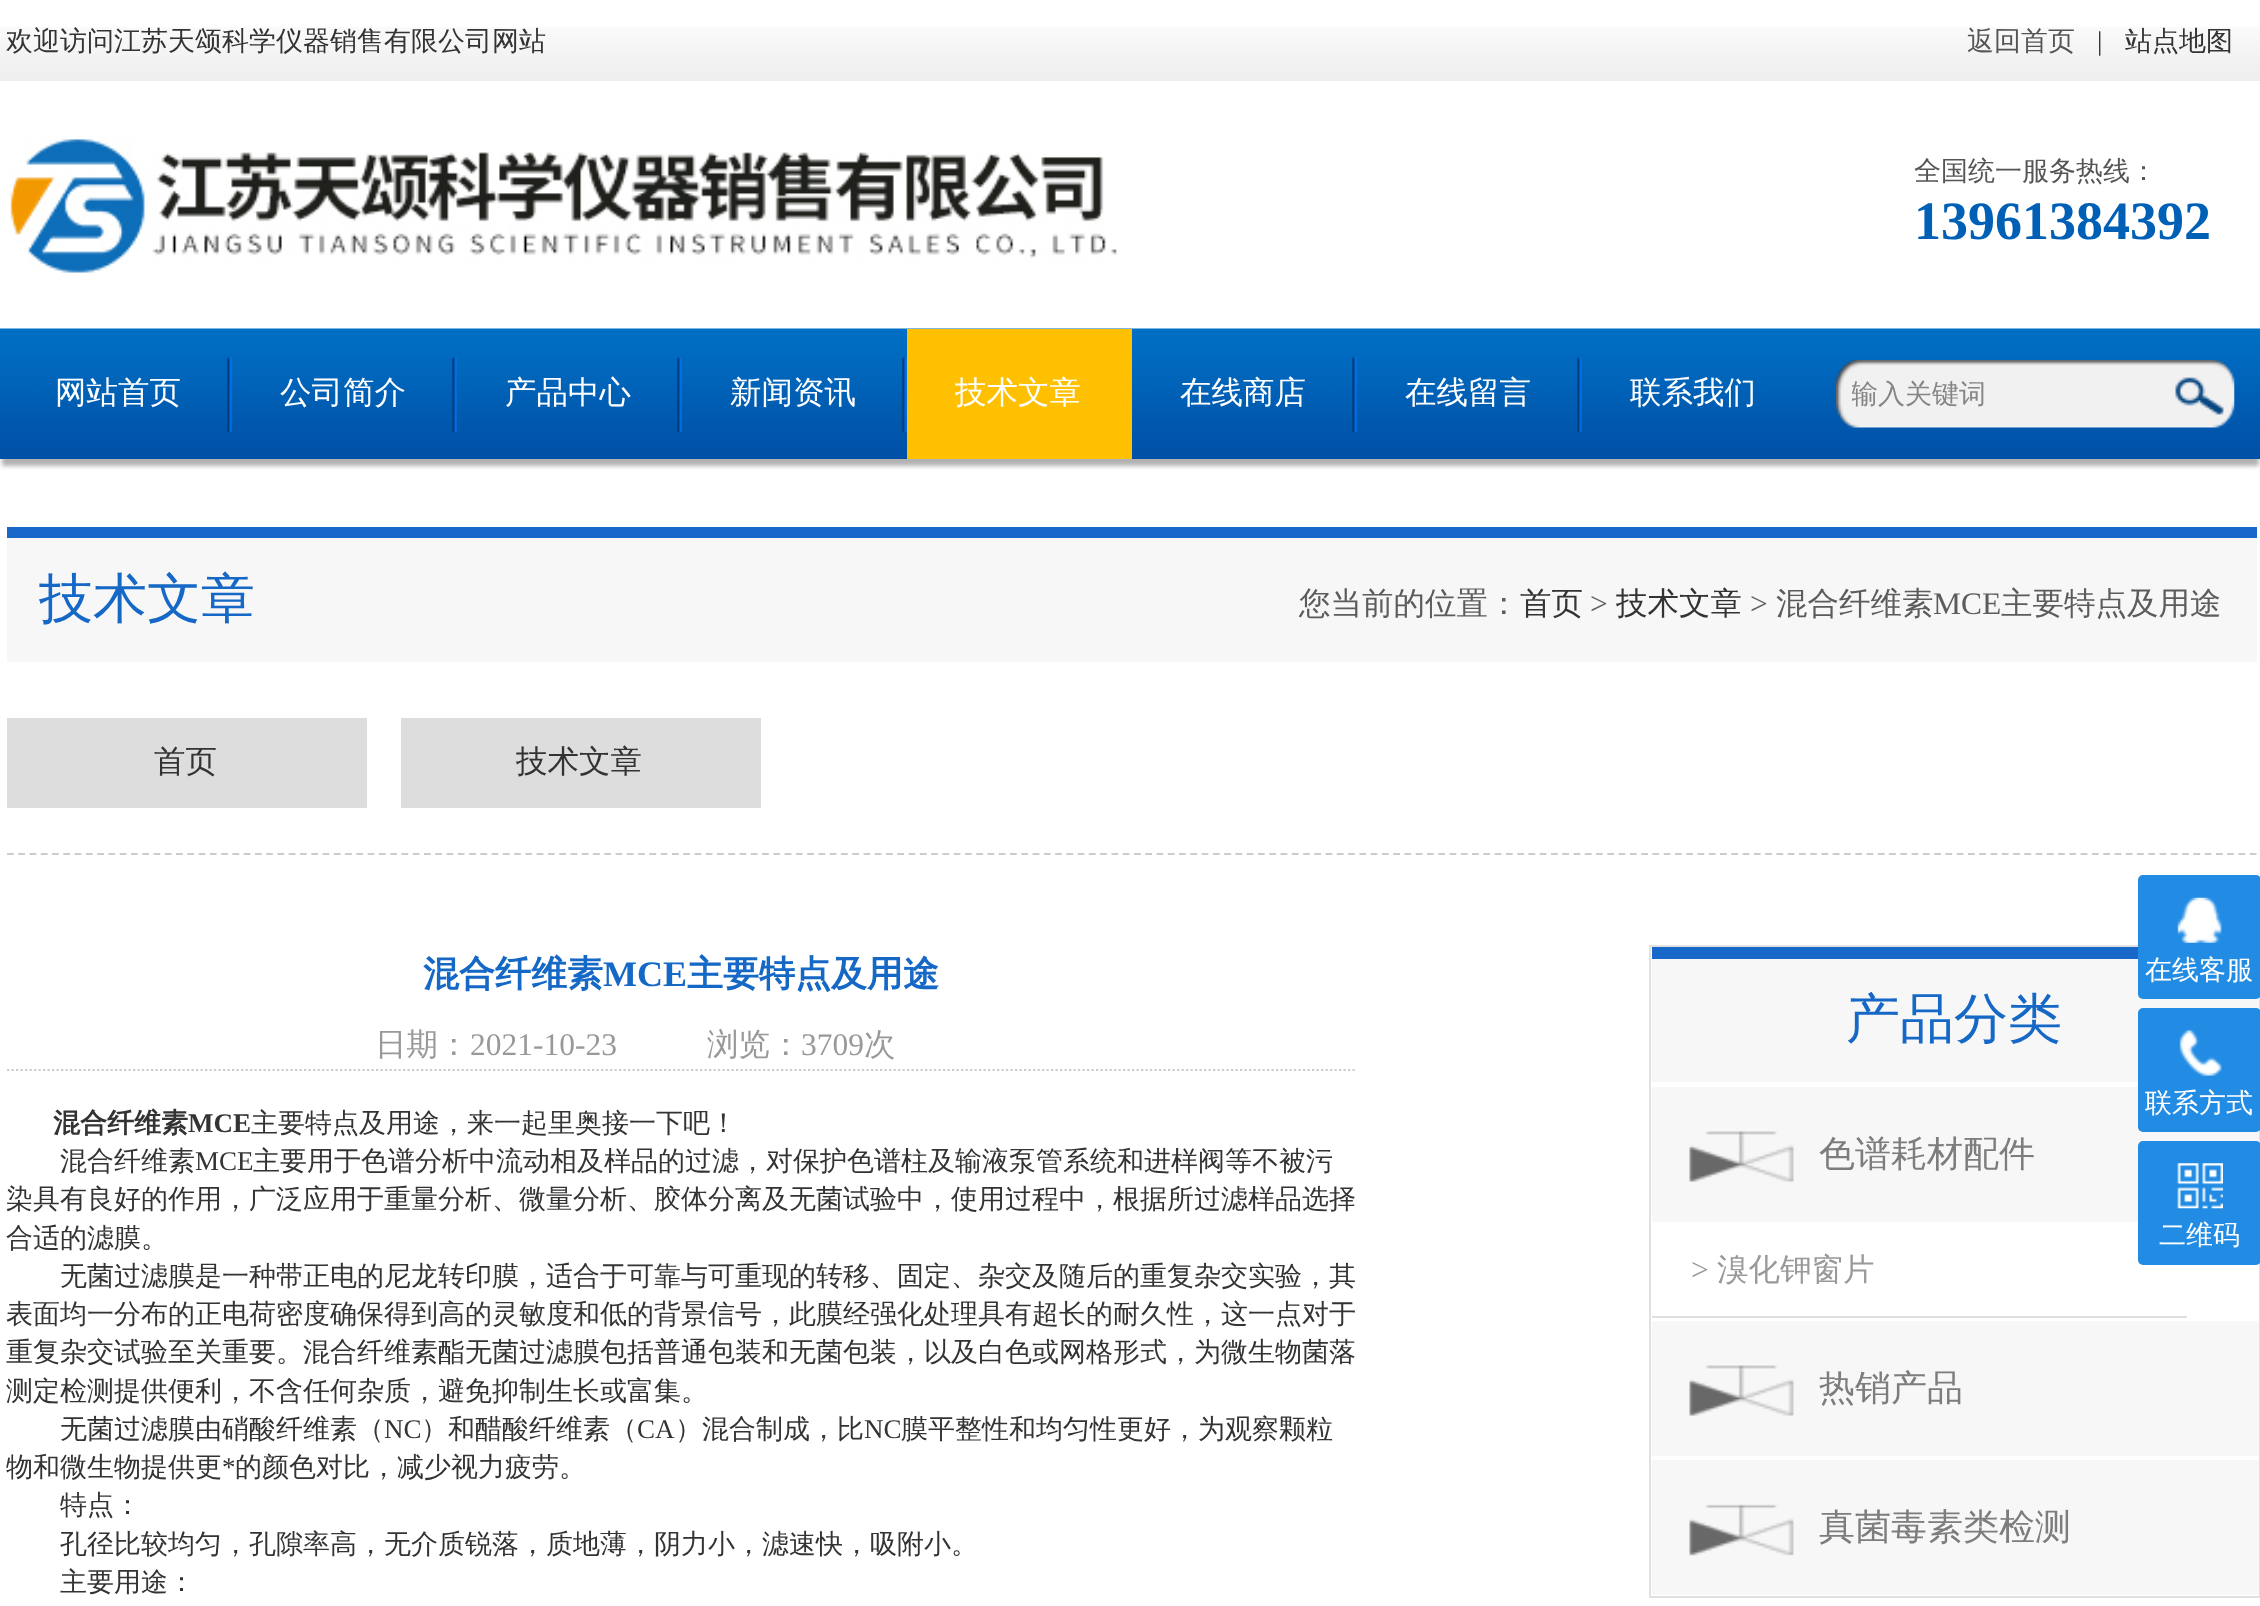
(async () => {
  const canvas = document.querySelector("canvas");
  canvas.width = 2260;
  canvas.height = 1606;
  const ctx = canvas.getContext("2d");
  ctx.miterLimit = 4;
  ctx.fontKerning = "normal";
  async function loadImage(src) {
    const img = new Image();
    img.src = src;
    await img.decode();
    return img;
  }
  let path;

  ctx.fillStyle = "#ffffff";
  ctx.fillRect(0, 0, 2260, 1606);
  ctx.drawImage(await loadImage("img/1.png"), 0, 27, 2260, 54);
  ctx.drawImage(await loadImage("img/2.png"), 10, 136, 1107, 138);
  ctx.fillStyle = "rgba(0, 0, 0, 0.3)";
  ctx.filter = "blur(2px)";
  ctx.beginPath();
  ctx.rect(2, 340, 2257, 126);
  ctx.fill();
  ctx.filter = "none";
  ctx.drawImage(await loadImage("img/3.png"), 0, 328, 2260, 131);
  ctx.drawImage(await loadImage("img/4.png"), 227, 357, 5, 75);
  ctx.drawImage(await loadImage("img/5.png"), 452, 357, 5, 75);
  ctx.drawImage(await loadImage("img/4.png"), 677, 357, 5, 75);
  ctx.drawImage(await loadImage("img/4.png"), 902, 357, 5, 75);
  ctx.fillStyle = "#ffc001";
  ctx.fillRect(907, 329, 225, 130);
  ctx.drawImage(await loadImage("img/6.png"), 1352, 357, 5, 75);
  ctx.drawImage(await loadImage("img/4.png"), 1577, 357, 5, 75);
  ctx.drawImage(await loadImage("img/7.png"), 1836, 360, 399, 68);
  ctx.drawImage(await loadImage("img/8.png"), 2175, 377, 49, 38);
  ctx.fillStyle = "#f7f7f7";
  ctx.fillRect(7, 538, 2250, 124);
  ctx.fillStyle = "#1967c9";
  ctx.fillRect(7, 527, 2250, 11);
  path = new Path2D("M7 854H2257");
  ctx.strokeStyle = "#cccccc";
  ctx.lineWidth = 2.2;
  ctx.setLineDash([6.75, 4.52]);
  ctx.stroke(path);
  ctx.fillStyle = "#dddddd";
  ctx.fillRect(7, 718, 360, 90);
  ctx.fillRect(401, 718, 360, 90);
  path = new Path2D("M7 1070H1357");
  ctx.setLineDash([2.25, 2.25]);
  ctx.stroke(path);
  ctx.strokeStyle = "#e1e1e1";
  ctx.lineWidth = 2;
  ctx.setLineDash([]);
  ctx.strokeRect(1650, 946, 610, 651);
  for (const [x, y, w, h, color] of [
    [1652, 959, 607, 123, "#f7f7f7"],
    [1652, 947, 486, 12, "#1967c9"],
    [1652, 1087, 607, 135, "#f7f7f7"],
  ]) {
    ctx.fillStyle = color;
    ctx.fillRect(x, y, w, h);
  }
  ctx.drawImage(await loadImage("img/9.png"), 1689, 1131, 105, 51);
  ctx.fillStyle = "#e0dede";
  ctx.fillRect(1652, 1316, 535, 2);
  ctx.fillStyle = "#f7f7f7";
  ctx.fillRect(1652, 1321, 607, 135);
  ctx.drawImage(await loadImage("img/10.png"), 1689, 1365, 105, 51);
  ctx.fillRect(1652, 1460, 607, 135);
  ctx.drawImage(await loadImage("img/11.png"), 1689, 1504, 105, 52);
  ctx.fillStyle = "#228ce4";
  ctx.beginPath();
  ctx.roundRect(2138, 875, 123, 124, 5);
  ctx.fill();
  ctx.drawImage(await loadImage("img/12.png"), 2177, 897, 45, 46);
  ctx.beginPath();
  ctx.roundRect(2138, 1008, 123, 124, 5);
  ctx.fill();
  ctx.drawImage(await loadImage("img/13.png"), 2179, 1029, 43, 47);
  ctx.beginPath();
  ctx.roundRect(2138, 1141, 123, 124, 5);
  ctx.fill();
  ctx.drawImage(await loadImage("img/14.png"), 2177, 1163, 46, 46);
  ctx.font = "500 27px WenQuanYi Zen Hei";
  ctx.fillStyle = "#333333";
  ctx.fillText("欢迎访问江苏天颂科学仪器销售有限公司网站", 6, 50);
  ctx.fillStyle = "#555555";
  ctx.fillText("返回首页", 1967, 50);
  ctx.font = "27px Liberation Serif";
  ctx.fillStyle = "#333333";
  ctx.fillText("|", 2097, 50);
  ctx.font = "500 27px WenQuanYi Zen Hei";
  ctx.fillText("站点地图", 2125, 50);
  ctx.fillStyle = "#555555";
  ctx.fillText("全国统一服务热线：", 1914, 180);
  ctx.font = "bold 54px Liberation Serif";
  ctx.fillStyle = "#0060b5";
  ctx.fillText("13961384392", 1914, 239);
  ctx.font = "500 31.5px WenQuanYi Zen Hei";
  ctx.fillStyle = "#ffffff";
  for (const [text, x, y] of [
    ["网站首页", 55, 403],
    ["公司简介", 280, 403],
    ["产品中心", 505, 403],
    ["新闻资讯", 730, 403],
    ["技术文章", 955, 403],
    ["在线商店", 1180, 403],
    ["在线留言", 1405, 403],
    ["联系我们", 1630, 403],
  ]) {
    ctx.fillText(text, x, y);
  }
  ctx.save();
  ctx.beginPath();
  ctx.rect(1852, 365, 299, 58);
  ctx.clip();
  ctx.font = "500 27px WenQuanYi Zen Hei";
  ctx.fillStyle = "#858585";
  ctx.fillText("输入关键词", 1851, 403);
  ctx.restore();
  ctx.font = "500 54px WenQuanYi Zen Hei";
  ctx.fillStyle = "#1568c5";
  ctx.fillText("技术文章", 39, 617);
  ctx.font = "500 31.5px WenQuanYi Zen Hei";
  ctx.fillStyle = "#5c5c5c";
  ctx.fillText("您当前的位置：", 1299, 614);
  ctx.fillStyle = "#333333";
  ctx.fillText("首页", 1520, 614);
  ctx.font = "31.5px Liberation Serif";
  ctx.fillStyle = "#5c5c5c";
  ctx.fillText(">", 1590, 614);
  ctx.font = "500 31.5px WenQuanYi Zen Hei";
  ctx.fillStyle = "#333333";
  ctx.fillText("技术文章", 1616, 614);
  ctx.font = "31.5px Liberation Serif";
  ctx.fillStyle = "#5c5c5c";
  ctx.fillText(">", 1750, 614);
  ctx.font = "500 31.5px WenQuanYi Zen Hei";
  ctx.fillText("混合纤维素", 1776, 614);
  ctx.font = "31.5px Liberation Serif";
  ctx.fillText("MCE", 1933, 614);
  ctx.font = "500 31.5px WenQuanYi Zen Hei";
  ctx.fillText("主要特点及用途", 2001, 614);
  ctx.fillStyle = "#333333";
  ctx.fillText("首页", 154, 772);
  ctx.fillText("技术文章", 516, 772);
  ctx.font = "bold 36px WenQuanYi Zen Hei";
  ctx.fillStyle = "#1568c5";
  ctx.fillText("混合纤维素", 423, 986);
  ctx.font = "bold 36px Liberation Serif";
  ctx.fillText("MCE", 603, 986);
  ctx.font = "bold 36px WenQuanYi Zen Hei";
  ctx.fillText("主要特点及用途", 687, 986);
  ctx.font = "500 31.5px WenQuanYi Zen Hei";
  ctx.fillStyle = "#999999";
  ctx.fillText("日期：", 375, 1055);
  ctx.font = "31.5px Liberation Serif";
  ctx.fillText("2021-10-23", 470, 1055);
  ctx.font = "500 31.5px WenQuanYi Zen Hei";
  ctx.fillText("浏览：", 707, 1055);
  ctx.font = "31.5px Liberation Serif";
  ctx.fillText("3709", 801, 1055);
  ctx.font = "500 31.5px WenQuanYi Zen Hei";
  ctx.fillText("次", 864, 1055);
  ctx.font = "bold 27px WenQuanYi Zen Hei";
  ctx.fillStyle = "#333333";
  ctx.fillText("混合纤维素", 53, 1132);
  ctx.font = "bold 27px Liberation Serif";
  ctx.fillText("MCE", 188, 1132);
  ctx.font = "500 27px WenQuanYi Zen Hei";
  ctx.fillText("主要特点及用途，来一起里奥接一下吧！", 251, 1132);
  ctx.fillText("混合纤维素", 60, 1170);
  ctx.font = "27px Liberation Serif";
  ctx.fillText("MCE", 195, 1170);
  ctx.font = "500 27px WenQuanYi Zen Hei";
  for (const [text, x, y] of [
    ["主要用于色谱分析中流动相及样品的过滤，对保护色谱柱及输液泵管系统和进样阀等不被污", 253, 1170],
    ["染具有良好的作用，广泛应用于重量分析、微量分析、胶体分离及无菌试验中，使用过程中，根据所过滤样品选择", 6, 1208],
    ["合适的滤膜。", 6, 1247],
    ["无菌过滤膜是一种带正电的尼龙转印膜，适合于可靠与可重现的转移、固定、杂交及随后的重复杂交实验，其", 60, 1285],
    ["表面均一分布的正电荷密度确保得到高的灵敏度和低的背景信号，此膜经强化处理具有超长的耐久性，这一点对于", 6, 1323],
    ["重复杂交试验至关重要。混合纤维素酯无菌过滤膜包括普通包装和无菌包装，以及白色或网格形式，为微生物菌落", 6, 1361],
    ["测定检测提供便利，不含任何杂质，避免抑制生长或富集。", 6, 1400],
    ["无菌过滤膜由硝酸纤维素（", 60, 1438],
  ]) {
    ctx.fillText(text, x, y);
  }
  ctx.font = "27px Liberation Serif";
  ctx.fillText("NC", 384, 1438);
  ctx.font = "500 27px WenQuanYi Zen Hei";
  ctx.fillText("）和醋酸纤维素（", 421, 1438);
  ctx.font = "27px Liberation Serif";
  ctx.fillText("CA", 637, 1438);
  ctx.font = "500 27px WenQuanYi Zen Hei";
  ctx.fillText("）混合制成，比", 675, 1438);
  ctx.font = "27px Liberation Serif";
  ctx.fillText("NC", 864, 1438);
  ctx.font = "500 27px WenQuanYi Zen Hei";
  ctx.fillText("膜平整性和均匀性更好，为观察颗粒", 901, 1438);
  ctx.fillText("物和微生物提供更", 6, 1476);
  ctx.font = "27px Liberation Serif";
  ctx.fillText("*", 222, 1476);
  ctx.font = "500 27px WenQuanYi Zen Hei";
  for (const [text, x, y] of [
    ["的颜色对比，减少视力疲劳。", 235, 1476],
    ["特点：", 60, 1514],
    ["孔径比较均匀，孔隙率高，无介质锐落，质地薄，阴力小，滤速快，吸附小。", 60, 1553],
    ["主要用途：", 60, 1591],
  ]) {
    ctx.fillText(text, x, y);
  }
  ctx.font = "500 54px WenQuanYi Zen Hei";
  ctx.fillStyle = "#1568c5";
  ctx.fillText("产品分类", 1846, 1037);
  ctx.font = "500 36px WenQuanYi Zen Hei";
  ctx.fillStyle = "#7d7d7d";
  ctx.fillText("色谱耗材配件", 1819, 1166);
  ctx.font = "31.5px Liberation Serif";
  ctx.fillStyle = "#999999";
  ctx.fillText(">", 1691, 1280);
  ctx.font = "500 31.5px WenQuanYi Zen Hei";
  ctx.fillText("溴化钾窗片", 1717, 1280);
  ctx.font = "500 36px WenQuanYi Zen Hei";
  ctx.fillStyle = "#7d7d7d";
  ctx.fillText("热销产品", 1819, 1400);
  ctx.fillText("真菌毒素类检测", 1819, 1539);
  ctx.font = "500 27px WenQuanYi Zen Hei";
  ctx.fillStyle = "#ffffff";
  for (const [text, x, y] of [
    ["在线客服", 2145, 979],
    ["联系方式", 2145, 1112],
    ["二维码", 2159, 1244],
  ]) {
    ctx.fillText(text, x, y);
  }
})();
